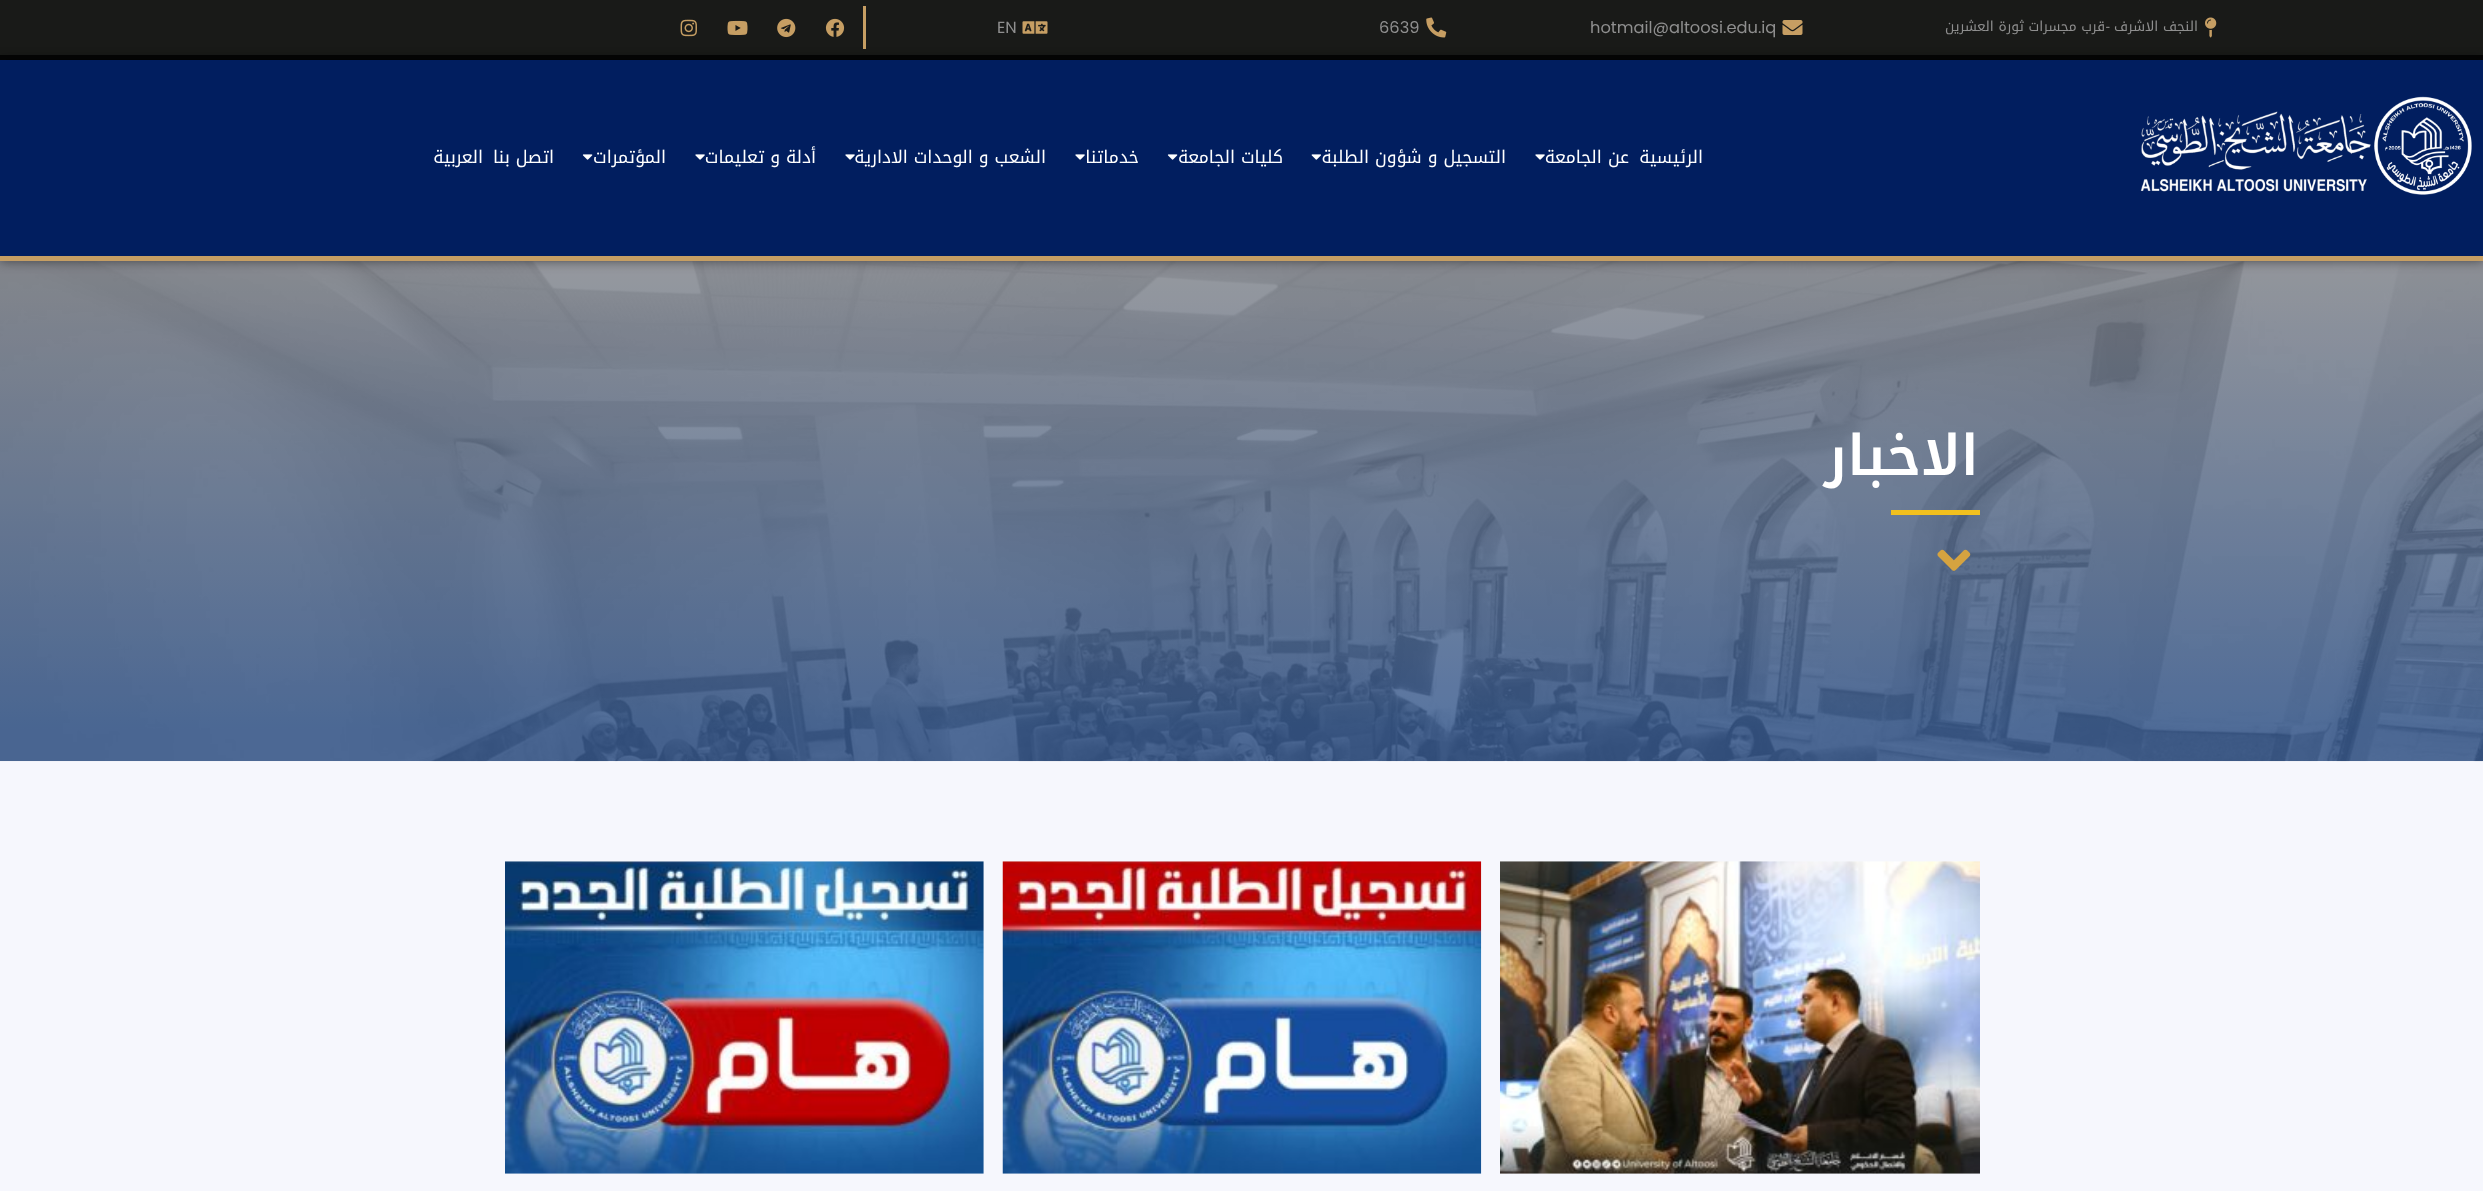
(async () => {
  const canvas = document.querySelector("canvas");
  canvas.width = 2483;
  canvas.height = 1191;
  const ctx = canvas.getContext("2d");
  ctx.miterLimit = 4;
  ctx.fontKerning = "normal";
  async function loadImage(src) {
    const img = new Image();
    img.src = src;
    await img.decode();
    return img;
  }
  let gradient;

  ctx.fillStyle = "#f6f7fd";
  ctx.fillRect(0, 0, 2483, 1191);
  ctx.fillStyle = "#191a18";
  ctx.fillRect(0, 0, 2483, 55);
  ctx.drawImage(await loadImage("img/1.png"), 2205, 17, 12, 21);
  ctx.drawImage(await loadImage("img/2.png"), 1782, 20, 21, 15);
  ctx.drawImage(await loadImage("img/3.png"), 1426, 17, 21, 21);
  ctx.fillStyle = "#c69e63";
  ctx.fillRect(863, 6, 3, 43);
  ctx.drawImage(await loadImage("img/4.png"), 1022, 21, 26, 13);
  ctx.drawImage(await loadImage("img/5.png"), 825, 18, 20, 19);
  ctx.drawImage(await loadImage("img/6.png"), 777, 18, 19, 20);
  ctx.drawImage(await loadImage("img/7.png"), 727, 20, 21, 15);
  ctx.drawImage(await loadImage("img/8.png"), 680, 19, 17, 18);
  ctx.fillStyle = "#050505";
  ctx.fillRect(0, 55, 2483, 5);
  gradient = ctx.createLinearGradient(1242, 261, 1242, 761);
  gradient.addColorStop(0, "#82858c");
  gradient.addColorStop(0.94, "#385a8e");
  ctx.fillStyle = gradient;
  ctx.fillRect(0, 261, 2483, 500);
  ctx.drawImage(await loadImage("img/13.png"), 0, 261, 2483, 501);
  ctx.fillStyle = "rgba(0, 0, 0, 0.5)";
  ctx.filter = "blur(6px)";
  ctx.beginPath();
  ctx.rect(0, 60, 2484, 201);
  ctx.fill();
  ctx.filter = "none";
  ctx.fillStyle = "#011e5f";
  ctx.fillRect(0, 60, 2483, 196);
  ctx.fillStyle = "#c69e63";
  ctx.fillRect(0, 256, 2483, 5);
  ctx.drawImage(await loadImage("img/9.png"), 2140, 96, 332, 99);
  ctx.drawImage(await loadImage("img/10.png"), 1535, 154, 10, 6);
  ctx.drawImage(await loadImage("img/11.png"), 1311, 154, 10, 6);
  ctx.drawImage(await loadImage("img/12.png"), 1167, 154, 11, 6);
  ctx.drawImage(await loadImage("img/10.png"), 1075, 154, 10, 6);
  ctx.drawImage(await loadImage("img/10.png"), 845, 154, 10, 6);
  ctx.drawImage(await loadImage("img/10.png"), 695, 154, 10, 6);
  ctx.drawImage(await loadImage("img/12.png"), 582, 154, 11, 6);
  ctx.fillStyle = "#f2c01e";
  ctx.fillRect(1891, 510, 89, 5);
  ctx.drawImage(await loadImage("img/14.png"), 1937, 549, 34, 22);
  ctx.drawImage(await loadImage("img/15.png"), 1500, 861, 480, 313);
  ctx.drawImage(await loadImage("img/16.png"), 1002, 861, 480, 313);
  ctx.drawImage(await loadImage("img/17.png"), 505, 861, 479, 313);
  ctx.direction = "rtl";
  ctx.font = "13.75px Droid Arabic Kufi";
  ctx.fillStyle = "#8f8f8f";
  ctx.fillText("النجف الاشرف", 2198, 31);
  ctx.font = "13.75px Liberation Sans";
  ctx.fillText("-", 2110, 31);
  ctx.font = "13.75px Droid Arabic Kufi";
  ctx.fillText("قرب مجسرات ثورة العشرين", 2105, 31);
  ctx.direction = "ltr";
  ctx.font = "16.25px Poppins";
  for (const [text, x, y] of [
    ["hotmail@altoosi.edu.iq", 1590, 33],
    ["6639", 1379, 33],
    ["EN", 997, 33],
  ]) {
    ctx.fillText(text, x, y);
  }
  ctx.direction = "rtl";
  ctx.font = "17.5px Droid Arabic Kufi";
  ctx.fillStyle = "#ffffff";
  for (const [text, x, y] of [
    ["الرئيسية", 1703, 163],
    ["عن الجامعة", 1629, 163],
    ["التسجيل و شؤون الطلبة", 1506, 163],
    ["كليات الجامعة", 1283, 163],
    ["خدماتنا", 1139, 163],
    ["الشعب و الوحدات الادارية", 1046, 163],
    ["أدلة و تعليمات", 816, 163],
    ["المؤتمرات", 666, 163],
    ["اتصل بنا", 554, 163],
    ["العربية", 483, 163],
  ]) {
    ctx.fillText(text, x, y);
  }
  ctx.font = "600 56px Noto Kufi Arabic";
  ctx.fillText("الاخبار", 1979, 475);
})();
